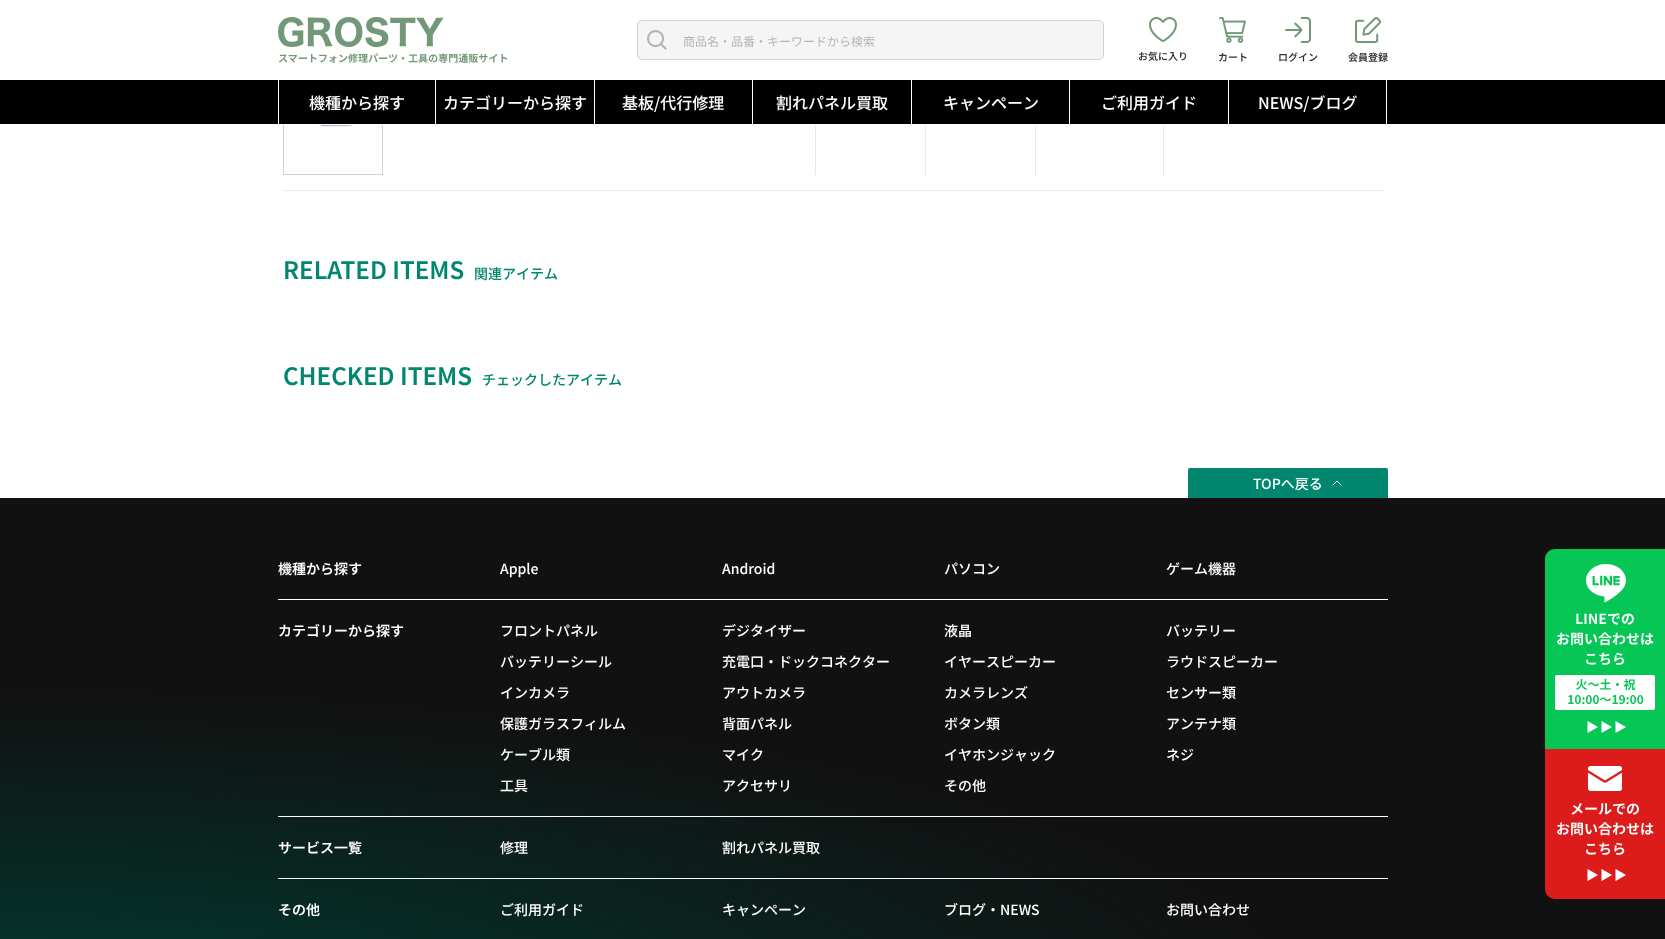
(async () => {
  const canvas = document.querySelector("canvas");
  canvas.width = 1665;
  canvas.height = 939;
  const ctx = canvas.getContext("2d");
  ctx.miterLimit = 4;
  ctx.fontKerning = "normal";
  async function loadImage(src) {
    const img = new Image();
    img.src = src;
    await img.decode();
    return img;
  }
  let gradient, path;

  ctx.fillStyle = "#ffffff";
  ctx.fillRect(0, 0, 1665, 939);
  ctx.strokeStyle = "#d1d1d1";
  ctx.strokeRect(283.5, 26.5, 99, 148);
  ctx.fillRect(283, 26, 100, 99);
  ctx.drawImage(await loadImage("img/1.png"), 278, 17, 229, 46);
  ctx.fillStyle = "#f5f5f5";
  ctx.beginPath();
  ctx.roundRect(637.5, 20.5, 466, 39, 4.5);
  ctx.fill();
  ctx.stroke();
  ctx.drawImage(await loadImage("img/2.png"), 647, 30, 20, 20);
  ctx.drawImage(await loadImage("img/3.png"), 1149, 17, 28, 25);
  ctx.drawImage(await loadImage("img/4.png"), 1219, 17, 27, 26);
  ctx.drawImage(await loadImage("img/5.png"), 1285, 17, 26, 26);
  ctx.drawImage(await loadImage("img/6.png"), 1355, 17, 26, 26);
  for (const [x, y, w, h, color] of [
    [0, 80, 1665, 44, "#000000"],
    [435, 80, 1, 44, "#ffffff"],
    [278, 80, 1, 44, "#ffffff"],
    [594, 80, 1, 44, "#ffffff"],
    [752, 80, 1, 44, "#ffffff"],
    [911, 80, 1, 44, "#ffffff"],
    [1069, 80, 1, 44, "#ffffff"],
    [1228, 80, 1, 44, "#ffffff"],
    [1386, 80, 1, 44, "#ffffff"],
    [283, 190, 1100, 1, "#e8e8e8"],
  ]) {
    ctx.fillStyle = color;
    ctx.fillRect(x, y, w, h);
  }
  ctx.drawImage(await loadImage("img/7.png"), 284, 125, 98, 3);
  for (const [x, y, w, h, color] of [
    [815, 125, 1, 50, "#e8e8e8"],
    [925, 125, 1, 50, "#e8e8e8"],
    [1035, 125, 1, 50, "#e8e8e8"],
    [1163, 125, 1, 50, "#e8e8e8"],
  ]) {
    ctx.fillStyle = color;
    ctx.fillRect(x, y, w, h);
  }
  gradient = ctx.createRadialGradient(0, 4012.12, 0, 0, 4012.12, 1310);
  gradient.addColorStop(0, "#003c31");
  gradient.addColorStop(1, "#111111");
  ctx.fillStyle = gradient;
  ctx.beginPath();
  ctx.rect(0, 498, 1665, 441);
  ctx.save();
  ctx.clip();
  ctx.scale(1, 335 / 1310);
  ctx.fillRect(0, 0, 1665, 3672);
  ctx.restore();
  ctx.fillStyle = "#01876f";
  ctx.beginPath();
  ctx.roundRect(1188, 468, 200, 30, [2, 2, 0, 0]);
  ctx.fill();
  path = new Path2D("M1341 485L1337 481L1333 485");
  ctx.strokeStyle = "#ffffff";
  ctx.lineCap = "round";
  ctx.lineJoin = "round";
  ctx.stroke(path);
  for (const [x, y, w, h, color] of [
    [278, 599, 1110, 1, "#ffffff"],
    [278, 816, 1110, 1, "#ffffff"],
    [278, 878, 1110, 1, "#ffffff"],
  ]) {
    ctx.fillStyle = color;
    ctx.fillRect(x, y, w, h);
  }
  ctx.drawImage(await loadImage("img/8.png"), 1545, 549, 120, 200);
  ctx.drawImage(await loadImage("img/9.png"), 1545, 749, 120, 150);
  ctx.font = "12px Noto Sans JP";
  ctx.fillStyle = "#b5b5b5";
  ctx.fillText("商品名・品番・キーワードから検索", 683, 46);
  ctx.font = "600 10px Noto Sans JP";
  ctx.fillStyle = "#333333";
  for (const [text, x, y] of [
    ["お気に入り", 1138, 60],
    ["カート", 1218, 61],
    ["ログイン", 1278, 61],
    ["会員登録", 1348, 61],
  ]) {
    ctx.fillText(text, x, y);
  }
  ctx.font = "500 16px Noto Sans JP";
  ctx.fillStyle = "#ffffff";
  for (const [text, x, y] of [
    ["機種から探す", 309, 109],
    ["カテゴリーから探す", 443, 109],
    ["基板/代行修理", 622, 109],
    ["割れパネル買取", 776, 109],
    ["キャンペーン", 943, 109],
    ["ご利用ガイド", 1101, 109],
    ["NEWS/ブログ", 1258, 109],
  ]) {
    ctx.fillText(text, x, y);
  }
  ctx.font = "600 24px Noto Sans JP";
  ctx.fillStyle = "#01876f";
  ctx.fillText("RELATED ITEMS", 283, 279);
  ctx.font = "500 14px Noto Sans JP";
  ctx.fillText("関連アイテム", 474, 279);
  ctx.font = "600 24px Noto Sans JP";
  ctx.fillText("CHECKED ITEMS", 283, 385);
  ctx.font = "500 14px Noto Sans JP";
  ctx.fillText("チェックしたアイテム", 482, 385);
  ctx.fillStyle = "#ffffff";
  ctx.fillText("TOPへ戻る", 1253, 489);
  ctx.font = "600 14px Noto Sans JP";
  ctx.fillText("機種から探す", 278, 574);
  ctx.font = "500 14px Noto Sans JP";
  for (const [text, x, y] of [
    ["Apple", 500, 574],
    ["Android", 722, 574],
    ["パソコン", 944, 574],
    ["ゲーム機器", 1166, 574],
  ]) {
    ctx.fillText(text, x, y);
  }
  ctx.font = "600 14px Noto Sans JP";
  ctx.fillText("カテゴリーから探す", 278, 636);
  ctx.font = "500 14px Noto Sans JP";
  for (const [text, x, y] of [
    ["フロントパネル", 500, 636],
    ["バッテリーシール", 500, 667],
    ["インカメラ", 500, 698],
    ["保護ガラスフィルム", 500, 729],
    ["ケーブル類", 500, 760],
    ["工具", 500, 791],
    ["デジタイザー", 722, 636],
    ["充電口・ドックコネクター", 722, 667],
    ["アウトカメラ", 722, 698],
    ["背面パネル", 722, 729],
    ["マイク", 722, 760],
    ["アクセサリ", 722, 791],
    ["液晶", 944, 636],
    ["イヤースピーカー", 944, 667],
    ["カメラレンズ", 944, 698],
    ["ボタン類", 944, 729],
    ["イヤホンジャック", 944, 760],
    ["その他", 944, 791],
    ["バッテリー", 1166, 636],
    ["ラウドスピーカー", 1166, 667],
    ["センサー類", 1166, 698],
    ["アンテナ類", 1166, 729],
    ["ネジ", 1166, 760],
  ]) {
    ctx.fillText(text, x, y);
  }
  ctx.font = "600 14px Noto Sans JP";
  ctx.fillText("サービス一覧", 278, 853);
  ctx.font = "500 14px Noto Sans JP";
  ctx.fillText("修理", 500, 853);
  ctx.fillText("割れパネル買取", 722, 853);
  ctx.font = "600 14px Noto Sans JP";
  ctx.fillText("その他", 278, 915);
  ctx.font = "500 14px Noto Sans JP";
  for (const [text, x, y] of [
    ["ご利用ガイド", 500, 915],
    ["キャンペーン", 722, 915],
    ["ブログ・NEWS", 944, 915],
    ["お問い合わせ", 1166, 915],
  ]) {
    ctx.fillText(text, x, y);
  }
})();
